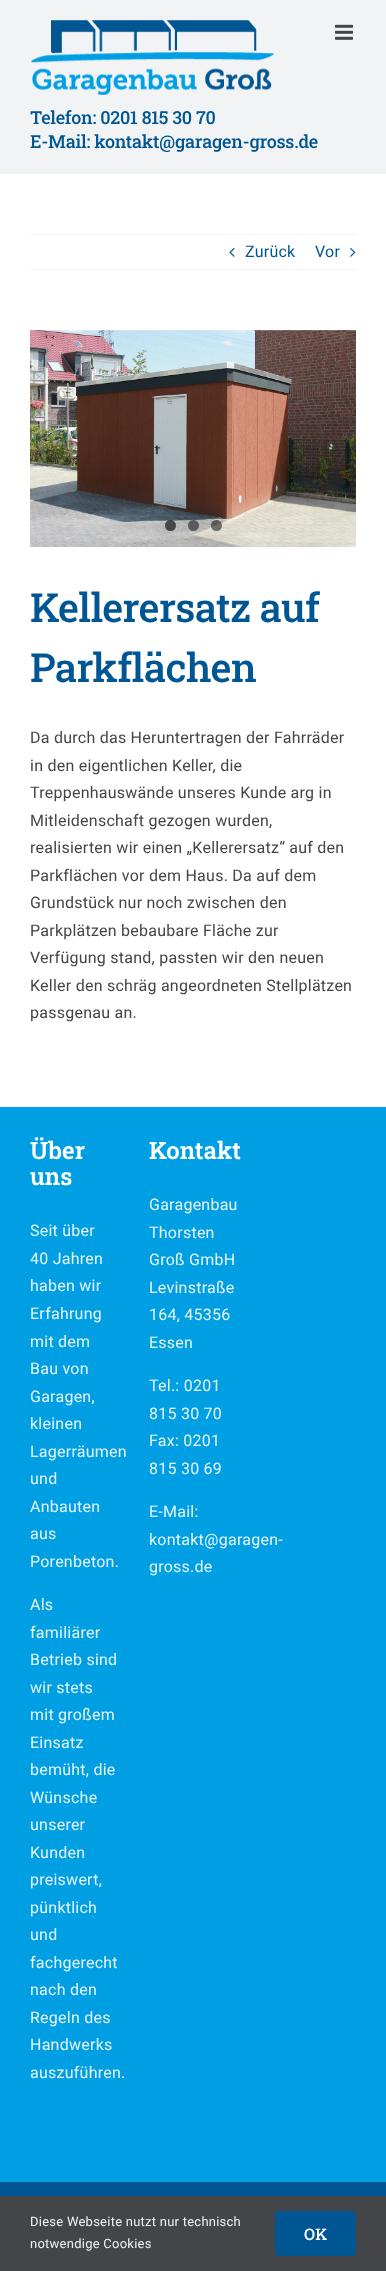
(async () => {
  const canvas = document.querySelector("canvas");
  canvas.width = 386;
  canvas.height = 2271;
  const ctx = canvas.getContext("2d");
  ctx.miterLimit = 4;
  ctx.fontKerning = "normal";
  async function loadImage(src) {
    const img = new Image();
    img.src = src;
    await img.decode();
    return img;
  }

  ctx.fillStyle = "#ffffff";
  ctx.fillRect(0, 0, 386, 2271);
  ctx.fillStyle = "#f2f3f5";
  ctx.fillRect(0, 0, 386, 174);
  ctx.drawImage(await loadImage("img/1.png"), 335, 24, 18, 16);
  ctx.drawImage(await loadImage("img/2.png"), 30, 20, 244, 75);
  ctx.fillRect(30, 234, 326, 1);
  ctx.fillRect(30, 269, 326, 1);
  ctx.drawImage(await loadImage("img/3.png"), 229, 248, 6, 9);
  ctx.drawImage(await loadImage("img/4.png"), 350, 248, 6, 9);
  ctx.drawImage(await loadImage("img/5.png"), 30, 330, 326, 217);
  ctx.fillStyle = "rgba(19, 21, 22, 0.7)";
  ctx.beginPath();
  ctx.arc(170.5, 525.5, 5.5, 0, Math.PI * 2);
  ctx.fill();
  ctx.fillStyle = "rgba(0, 0, 0, 0.5)";
  ctx.beginPath();
  ctx.arc(193.5, 525.5, 5.5, 0, Math.PI * 2);
  ctx.fill();
  ctx.beginPath();
  ctx.arc(216.5, 525.5, 5.5, 0, Math.PI * 2);
  ctx.fill();
  for (const [x, y, w, h, color] of [
    [0, 1107, 386, 1075, "#009fe3"],
    [0, 2182, 386, 14, "#005693"],
    [0, 2196, 386, 75, "#434549"],
  ]) {
    ctx.fillStyle = color;
    ctx.fillRect(x, y, w, h);
  }
  ctx.fillStyle = "#005693";
  ctx.beginPath();
  ctx.roundRect(275, 2211, 81, 45, 4);
  ctx.fill();
  ctx.letterSpacing = "-0.25px";
  ctx.font = "500 18px Roboto Slab";
  ctx.fillText("Telefon: 0201 815 30 70", 30, 124);
  ctx.fillText("E-Mail: kontakt@garagen-gross.de", 30, 148);
  ctx.letterSpacing = "0.25px";
  ctx.font = "16px Roboto";
  ctx.fillText("Zurück", 245, 257);
  ctx.fillText("Vor", 315, 257);
  ctx.letterSpacing = "-0.6px";
  ctx.font = "500 40px Roboto Slab";
  ctx.fillText("Kellerersatz auf", 30, 622);
  ctx.fillText("Parkflächen", 30, 682);
  ctx.letterSpacing = "0.25px";
  ctx.font = "16px Roboto";
  ctx.fillStyle = "#434549";
  for (const [text, x, y] of [
    ["Da durch das Heruntertragen der Fahrräder", 30, 743],
    ["in den eigentlichen Keller, die", 30, 771],
    ["Treppenhauswände unseres Kunde arg in", 30, 798],
    ["Mitleidenschaft gezogen wurden,", 30, 826],
    ["realisierten wir einen „Kellerersatz“ auf den", 30, 853],
    ["Parkflächen vor dem Haus. Da auf dem", 30, 881],
    ["Grundstück nur noch zwischen den", 30, 908],
    ["Parkplätzen bebaubare Fläche zur", 30, 936],
    ["Verfügung stand, passten wir den neuen", 30, 963],
    ["Keller den schräg angeordneten Stellplätzen", 30, 991],
    ["passgenau an.", 30, 1018],
  ]) {
    ctx.fillText(text, x, y);
  }
  ctx.letterSpacing = "0px";
  ctx.font = "600 24px Roboto Slab";
  ctx.fillStyle = "#ffffff";
  ctx.fillText("Über", 30, 1159);
  ctx.fillText("uns", 30, 1185);
  ctx.letterSpacing = "0.25px";
  ctx.font = "16px Roboto";
  ctx.fillStyle = "#e6f5fc";
  for (const [text, x, y] of [
    ["Seit über", 30, 1236],
    ["40 Jahren", 30, 1264],
    ["haben wir", 30, 1291],
    ["Erfahrung", 30, 1319],
    ["mit dem", 30, 1347],
    ["Bau von", 30, 1374],
    ["Garagen,", 30, 1402],
    ["kleinen", 30, 1429],
    ["Lagerräumen", 30, 1457],
    ["und", 30, 1484],
    ["Anbauten", 30, 1512],
    ["aus", 30, 1539],
    ["Porenbeton.", 30, 1567],
    ["Als", 30, 1610],
    ["familiärer", 30, 1638],
    ["Betrieb sind", 30, 1665],
    ["wir stets", 30, 1693],
    ["mit großem", 30, 1720],
    ["Einsatz", 30, 1748],
    ["bemüht, die", 30, 1775],
    ["Wünsche", 30, 1803],
    ["unserer", 30, 1830],
    ["Kunden", 30, 1858],
    ["preiswert,", 30, 1885],
    ["pünktlich", 30, 1913],
    ["und", 30, 1940],
    ["fachgerecht", 30, 1968],
    ["nach den", 30, 1995],
    ["Regeln des", 30, 2023],
    ["Handwerks", 30, 2050],
    ["auszuführen.", 30, 2078],
  ]) {
    ctx.fillText(text, x, y);
  }
  ctx.letterSpacing = "0px";
  ctx.font = "600 24px Roboto Slab";
  ctx.fillStyle = "#ffffff";
  ctx.fillText("Kontakt", 149, 1159);
  ctx.letterSpacing = "0.25px";
  ctx.font = "16px Roboto";
  ctx.fillStyle = "#e6f5fc";
  for (const [text, x, y] of [
    ["Garagenbau", 149, 1210],
    ["Thorsten", 149, 1238],
    ["Groß GmbH", 149, 1265],
    ["Levinstraße", 149, 1293],
    ["164, 45356", 149, 1320],
    ["Essen", 149, 1348],
    ["Tel.: 0201", 149, 1391],
    ["815 30 70", 149, 1419],
    ["Fax: 0201", 149, 1446],
    ["815 30 69", 149, 1474],
    ["E-Mail:", 149, 1517],
    ["kontakt@garagen-", 149, 1545],
    ["gross.de", 149, 1572],
  ]) {
    ctx.fillText(text, x, y);
  }
  ctx.font = "13px Roboto";
  ctx.fillStyle = "#f2f3f5";
  ctx.fillText("Diese Webseite nutzt nur technisch", 30, 2226);
  ctx.fillText("notwendige Cookies", 30, 2248);
  ctx.font = "500 16px Roboto Slab";
  ctx.fillStyle = "#ffffff";
  ctx.fillText("OK", 304, 2240);
})();
